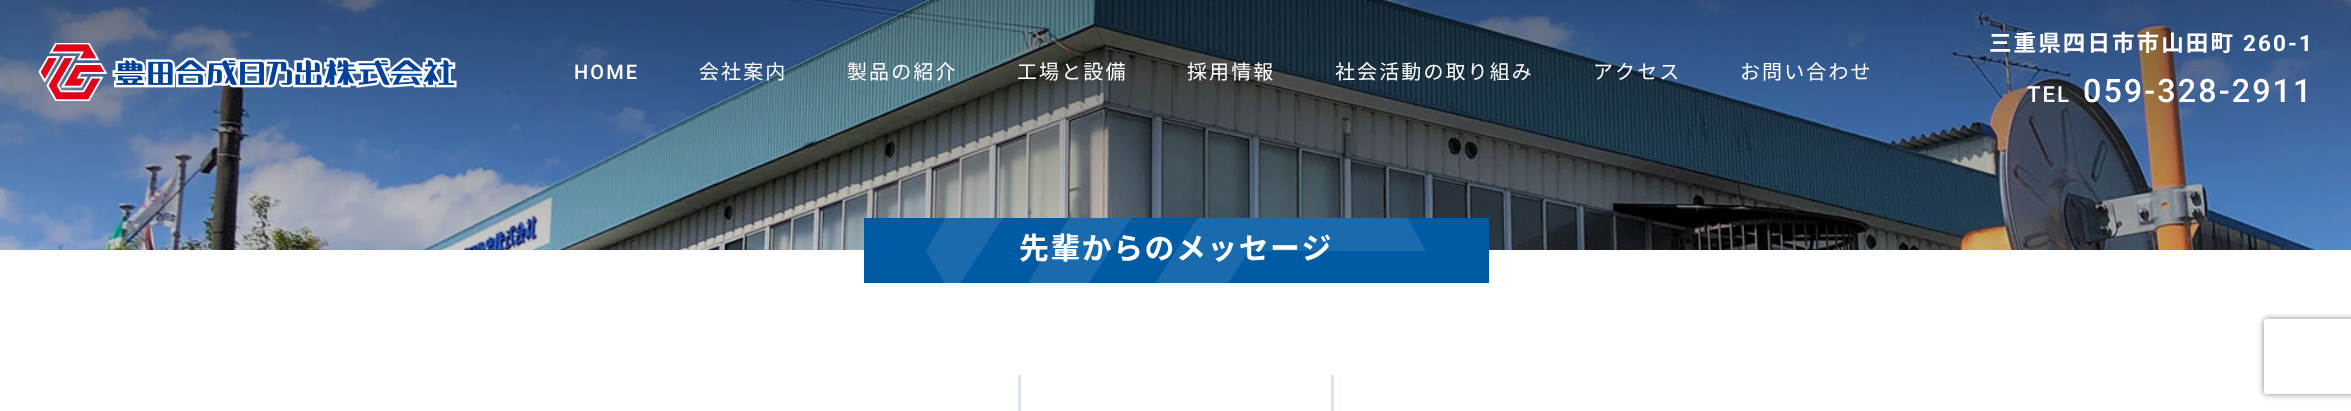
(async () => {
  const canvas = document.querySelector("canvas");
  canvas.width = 2351;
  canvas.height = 411;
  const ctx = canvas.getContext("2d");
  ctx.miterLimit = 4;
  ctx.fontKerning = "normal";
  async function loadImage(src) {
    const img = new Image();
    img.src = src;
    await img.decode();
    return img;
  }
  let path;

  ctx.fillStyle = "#ffffff";
  ctx.fillRect(0, 0, 2351, 411);
  ctx.drawImage(await loadImage("img/1.png"), 0, 0, 2351, 250);
  ctx.drawImage(await loadImage("img/2.png"), 38, 43, 419, 58);
  ctx.fillStyle = "#005aa4";
  ctx.fillRect(864, 218, 625, 65);
  ctx.save();
  ctx.beginPath();
  ctx.rect(926, 218, 500, 65);
  ctx.clip();
  ctx.fillStyle = "#1a6bad";
  path = new Path2D("M1426 251L1395 196H1212L1105 360H1230L1265 306H1213L1249 251Z");
  ctx.fill(path);
  path = new Path2D("M1332 306L1260 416H1077L1042 355L1180 143H1118L984 350L1051 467H1301L1394 306Z");
  ctx.fill(path);
  path = new Path2D("M1052 143H989L926 251L952 296Z");
  ctx.fill(path);
  ctx.restore();
  ctx.fillStyle = "#d9e6f1";
  ctx.fillRect(1018, 375, 3, 36);
  ctx.fillRect(1331, 375, 3, 36);
  ctx.save();
  path = new Path2D("M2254 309H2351V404H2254ZM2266.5 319H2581.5C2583 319 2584 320 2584 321.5V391.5C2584 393 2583 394 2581.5 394H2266.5C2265 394 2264 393 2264 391.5V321.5C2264 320 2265 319 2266.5 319Z");
  ctx.clip(path, "evenodd");
  ctx.fillStyle = "#808080";
  ctx.filter = "blur(3px)";
  ctx.beginPath();
  ctx.roundRect(2264, 319, 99, 75, 2.5);
  ctx.fill();
  ctx.filter = "none";
  ctx.restore();
  ctx.letterSpacing = "2.1px";
  ctx.font = "500 20px Roboto";
  ctx.fillStyle = "#ffffff";
  ctx.fillText("HOME", 574, 79);
  ctx.font = "20px Noto Sans JP";
  for (const [text, x, y] of [
    ["会社案内", 699, 79],
    ["製品の紹介", 847, 79],
    ["工場と設備", 1017, 79],
    ["採用情報", 1187, 79],
    ["社会活動の取り組み", 1335, 79],
    ["アクセス", 1593, 79],
    ["お問い合わせ", 1740, 79],
  ]) {
    ctx.fillText(text, x, y);
  }
  ctx.font = "bold 22.5px Noto Sans JP";
  ctx.fillText("三重県四日市市山田町", 1989, 51);
  ctx.font = "bold 22.5px Roboto";
  ctx.fillText("260-1", 2243, 51);
  ctx.font = "500 22px Roboto";
  ctx.fillText("TEL", 2027, 102);
  ctx.font = "500 32.25px Roboto";
  ctx.fillText("059-328-2911", 2083, 102);
  ctx.letterSpacing = "1.5px";
  ctx.font = "bold 29.9px Noto Sans JP";
  ctx.fillText("先輩からのメッセージ", 1019, 259);
})();
